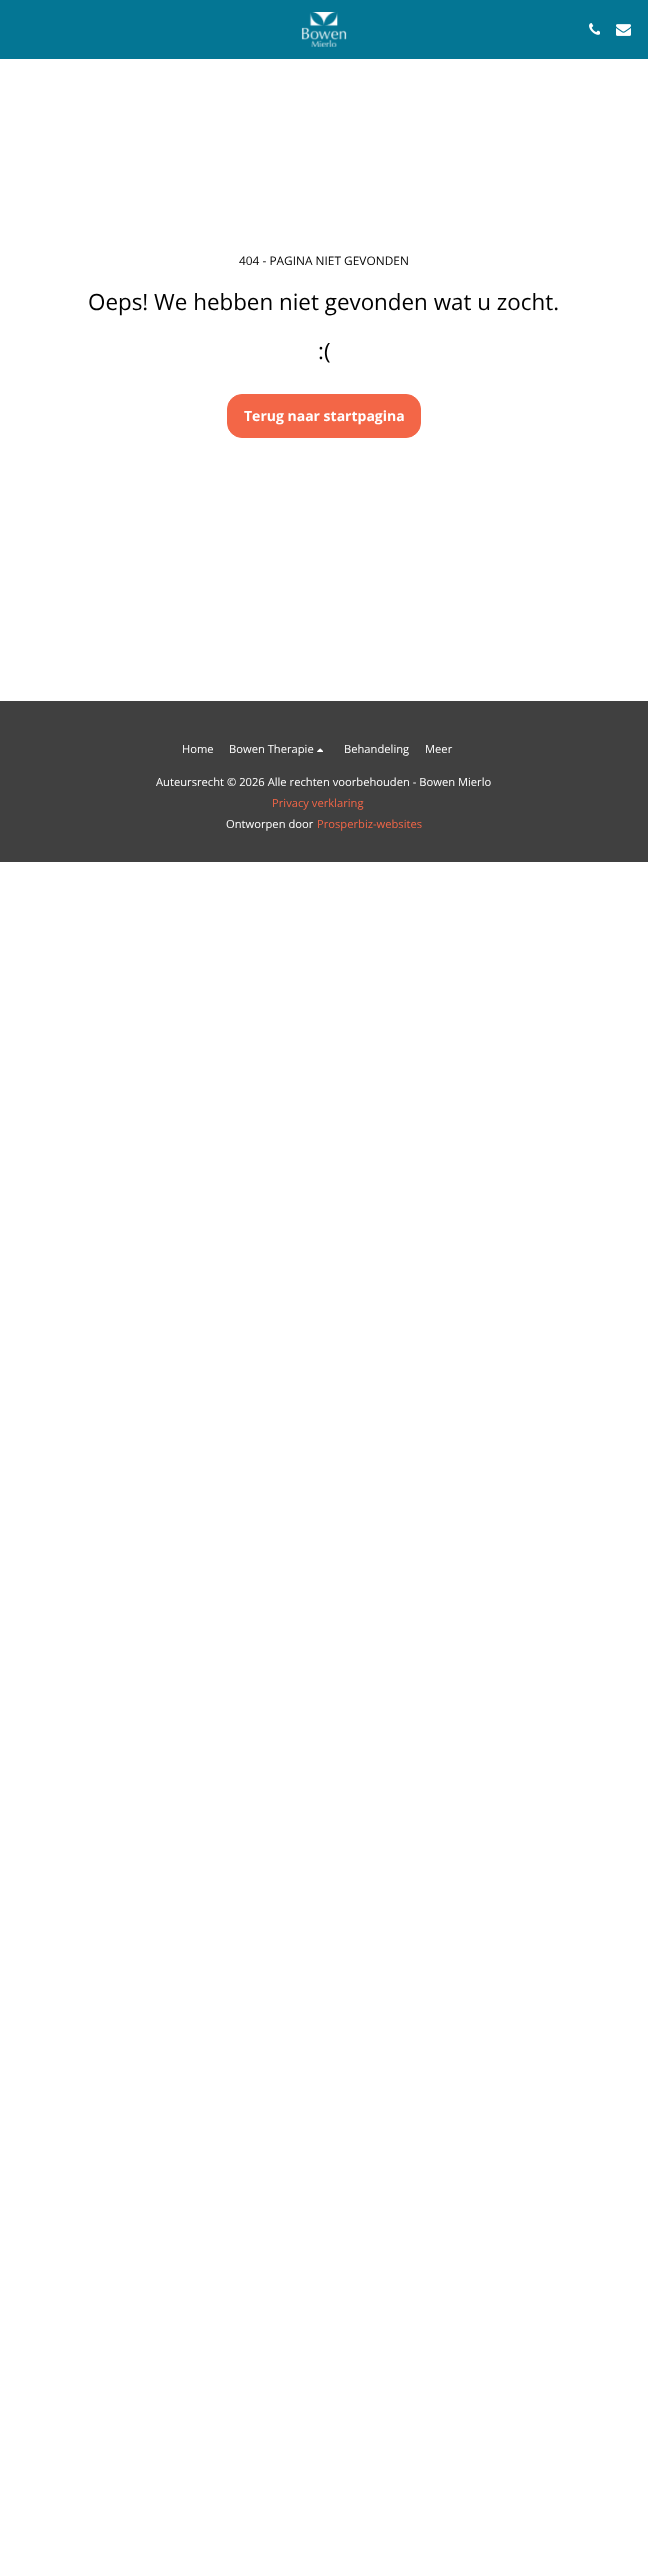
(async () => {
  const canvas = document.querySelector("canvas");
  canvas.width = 648;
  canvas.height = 2563;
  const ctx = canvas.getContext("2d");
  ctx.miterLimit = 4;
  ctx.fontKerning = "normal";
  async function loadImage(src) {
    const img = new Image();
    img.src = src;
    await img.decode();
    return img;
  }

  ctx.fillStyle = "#ffffff";
  ctx.fillRect(0, 0, 648, 2563);
  ctx.fillStyle = "#047694";
  ctx.fillRect(0, 0, 648, 59);
  ctx.drawImage(await loadImage("img/1.png"), 301, 12, 46, 35);
  ctx.drawImage(await loadImage("img/2.png"), 589, 23, 11, 12);
  ctx.drawImage(await loadImage("img/3.png"), 616, 24, 15, 12);
  ctx.fillStyle = "#f36647";
  ctx.beginPath();
  ctx.roundRect(227.5, 394.5, 193, 43, 14.5);
  ctx.fill();
  ctx.strokeStyle = "#f36647";
  ctx.stroke();
  ctx.fillStyle = "#404040";
  ctx.fillRect(0, 701, 648, 161);
  ctx.drawImage(await loadImage("img/4.png"), 317, 748, 6, 4);
  ctx.font = "11.9px Open Sans";
  ctx.fillStyle = "#000000";
  ctx.fillText("404 - PAGINA NIET GEVONDEN", 239, 265);
  ctx.font = "22.4px Open Sans";
  ctx.fillText("Oeps! We hebben niet gevonden wat u zocht.", 88, 310);
  ctx.fillText(":(", 318, 359);
  ctx.font = "bold 14px Open Sans";
  ctx.fillStyle = "#ffffff";
  ctx.fillText("Terug naar startpagina", 244, 421);
  ctx.font = "11.2px Open Sans";
  for (const [text, x, y] of [
    ["Home", 182, 753],
    ["Bowen Therapie", 229, 753],
    ["Behandeling", 344, 753],
    ["Meer", 425, 753],
    ["Auteursrecht © 2026 Alle rechten voorbehouden - Bowen Mierlo", 156, 786],
  ]) {
    ctx.fillText(text, x, y);
  }
  ctx.fillStyle = "#f36647";
  ctx.fillText("Privacy verklaring", 272, 807);
  ctx.fillStyle = "#ffffff";
  ctx.fillText("Ontworpen door", 226, 828);
  ctx.fillStyle = "#f36647";
  ctx.fillText("Prosperbiz-websites", 317, 828);
})();
